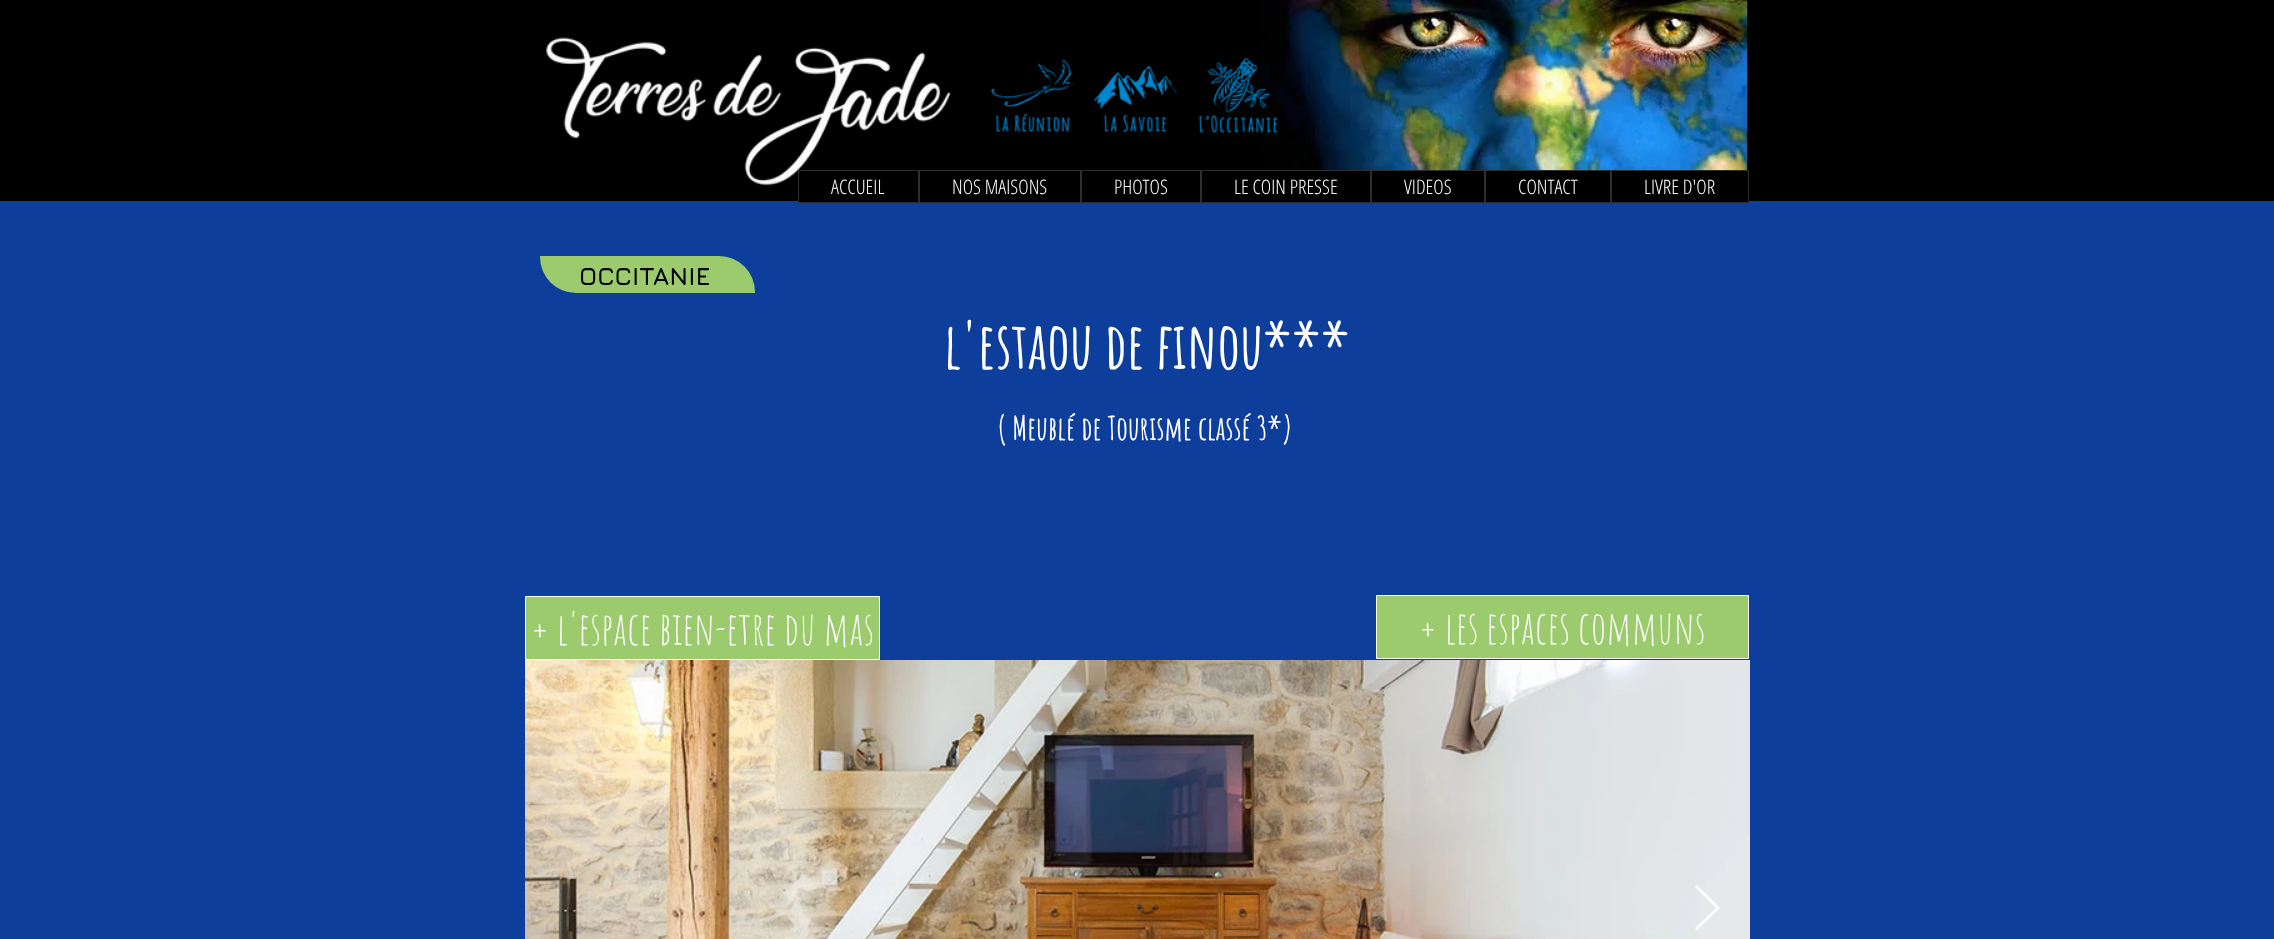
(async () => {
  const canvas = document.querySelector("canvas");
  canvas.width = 2274;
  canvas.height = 939;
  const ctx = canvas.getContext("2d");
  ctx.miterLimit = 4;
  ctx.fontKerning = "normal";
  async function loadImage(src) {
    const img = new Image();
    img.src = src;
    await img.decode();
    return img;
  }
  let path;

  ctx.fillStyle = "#0e3e9b";
  ctx.fillRect(0, 0, 2274, 939);
  ctx.fillStyle = "#000000";
  ctx.fillRect(0, 0, 2274, 201);
  ctx.drawImage(await loadImage("img/1.png"), 546, 37, 405, 149);
  ctx.drawImage(await loadImage("img/2.png"), 991, 58, 84, 75);
  ctx.drawImage(await loadImage("img/3.png"), 1093, 65, 85, 68);
  ctx.drawImage(await loadImage("img/5.png"), 1260, 0, 488, 170);
  ctx.drawImage(await loadImage("img/4.png"), 1198, 57, 80, 76);
  ctx.fillRect(799, 201, 119, 1);
  ctx.strokeStyle = "#2e2e2e";
  ctx.strokeRect(798.5, 170.5, 120, 32);
  ctx.fillRect(920, 201, 160, 1);
  ctx.strokeRect(919.5, 170.5, 161, 32);
  ctx.fillRect(1082, 201, 118, 1);
  ctx.strokeRect(1081.5, 170.5, 119, 32);
  ctx.fillRect(1202, 201, 168, 1);
  ctx.strokeRect(1201.5, 170.5, 169, 32);
  ctx.fillRect(1372, 201, 112, 1);
  ctx.strokeRect(1371.5, 170.5, 113, 32);
  ctx.fillRect(1486, 201, 124, 1);
  ctx.strokeRect(1485.5, 170.5, 125, 32);
  ctx.fillRect(1612, 201, 136, 1);
  ctx.strokeRect(1611.5, 170.5, 137, 32);
  ctx.fillStyle = "#9bcb6c";
  ctx.beginPath();
  ctx.roundRect(540, 256, 215, 37, [0, 36, 0, 36]);
  ctx.fill();
  ctx.beginPath();
  ctx.rect(525.5, 596.5, 354, 63);
  ctx.fill();
  ctx.strokeStyle = "#ffffff";
  ctx.stroke();
  ctx.beginPath();
  ctx.rect(1376.5, 595.5, 372, 63);
  ctx.fill();
  ctx.stroke();
  ctx.drawImage(await loadImage("img/6.png"), 525, 660, 1225, 279);
  ctx.fillStyle = "rgba(255, 255, 255, 0.9)";
  path = new Path2D("M1695 887L1697 885L1720 908L1697 930L1695 928L1716 908Z");
  ctx.fill(path);
  ctx.font = "300 20px Open Sans Condensed";
  ctx.fillStyle = "#ffffff";
  for (const [text, x, y] of [
    ["ACCUEIL", 831, 194],
    ["NOS MAISONS", 952, 194],
    ["PHOTOS", 1114, 194],
    ["LE COIN PRESSE", 1234, 194],
    ["VIDEOS", 1404, 194],
    ["CONTACT", 1518, 194],
    ["LIVRE D'OR", 1644, 194],
  ]) {
    ctx.fillText(text, x, y);
  }
  ctx.font = "bold 25px Jura";
  ctx.fillStyle = "#000000";
  ctx.fillText("OCCITANIE", 579, 285);
  ctx.font = "bold 63.75px Amatic SC";
  ctx.fillStyle = "#ffffff";
  ctx.fillText("l'estaou de finou***", 944, 369);
  ctx.font = "bold 32.5px Amatic SC";
  ctx.fillText("( Meublé de Tourisme classé 3*)", 997, 440);
  ctx.font = "45px Amatic SC";
  ctx.fillText("+ l'espace bien-etre du mas", 531, 645);
  ctx.fillText("+ les espaces communs", 1419, 644);
})();
